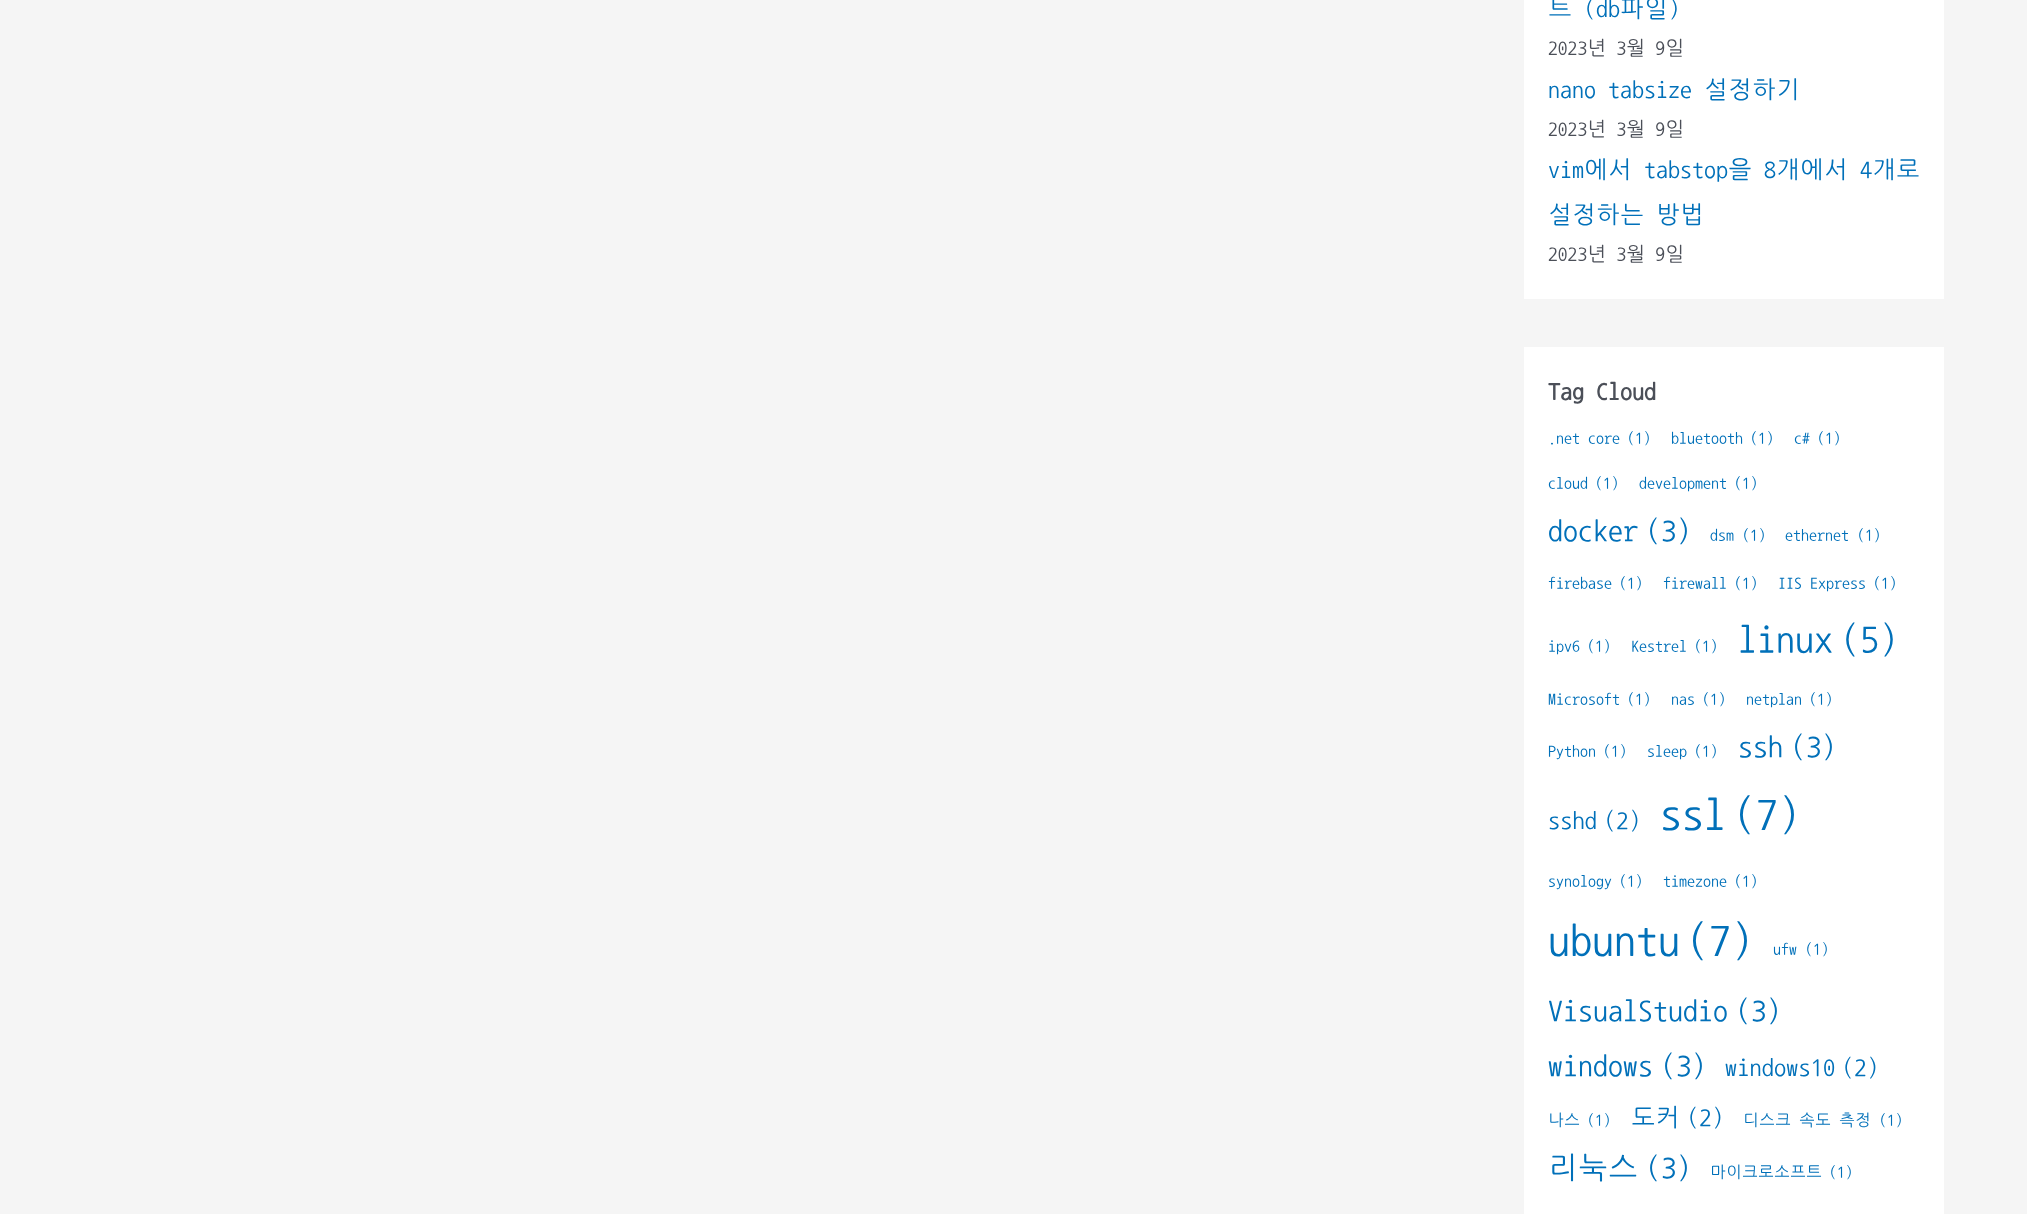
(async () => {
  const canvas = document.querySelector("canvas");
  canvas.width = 2027;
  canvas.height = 1214;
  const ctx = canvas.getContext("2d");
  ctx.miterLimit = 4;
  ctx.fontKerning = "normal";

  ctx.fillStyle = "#f5f5f5";
  ctx.fillRect(0, 0, 2027, 1214);
  ctx.fillStyle = "#ffffff";
  ctx.fillRect(1524, 0, 420, 299);
  ctx.fillRect(1524, 347, 420, 867);
  ctx.font = "24px NanumGothicCoding";
  ctx.fillStyle = "#0170b9";
  ctx.fillText("트 (db파일)", 1548, 16);
  ctx.font = "19.5px NanumGothicCoding";
  ctx.fillStyle = "#4b4f58";
  ctx.fillText("2023년 3월 9일", 1548, 54);
  ctx.font = "24px NanumGothicCoding";
  ctx.fillStyle = "#0170b9";
  ctx.fillText("nano tabsize 설정하기", 1548, 97);
  ctx.font = "19.5px NanumGothicCoding";
  ctx.fillStyle = "#4b4f58";
  ctx.fillText("2023년 3월 9일", 1548, 135);
  ctx.font = "24px NanumGothicCoding";
  ctx.fillStyle = "#0170b9";
  ctx.fillText("vim에서 tabstop을 8개에서 4개로", 1548, 177);
  ctx.fillText("설정하는 방법", 1548, 222);
  ctx.font = "19.5px NanumGothicCoding";
  ctx.fillStyle = "#4b4f58";
  ctx.fillText("2023년 3월 9일", 1548, 260);
  ctx.font = "bold 24px NanumGothicCoding";
  ctx.fillText("Tag Cloud", 1548, 399);
  ctx.font = "16px NanumGothicCoding";
  ctx.fillStyle = "#0170b9";
  for (const [text, x, y] of [
    [".net core", 1548, 443],
    ["(1)", 1627, 443],
    ["bluetooth", 1671, 443],
    ["(1)", 1750, 443],
    ["c#", 1794, 443],
    ["(1)", 1817, 443],
    ["cloud", 1548, 488],
    ["(1)", 1595, 488],
    ["development", 1639, 488],
    ["(1)", 1734, 488],
  ]) {
    ctx.fillText(text, x, y);
  }
  ctx.font = "30px NanumGothicCoding";
  ctx.fillText("docker", 1548, 540);
  ctx.fillText("(3)", 1646, 540);
  ctx.font = "16px NanumGothicCoding";
  for (const [text, x, y] of [
    ["dsm", 1710, 540],
    ["(1)", 1742, 540],
    ["ethernet", 1785, 540],
    ["(1)", 1857, 540],
    ["firebase", 1548, 588],
    ["(1)", 1619, 588],
    ["firewall", 1663, 588],
    ["(1)", 1734, 588],
    ["IIS Express", 1778, 588],
    ["(1)", 1873, 588],
    ["ipv6", 1548, 651],
    ["(1)", 1587, 651],
    ["Kestrel", 1631, 651],
    ["(1)", 1694, 651],
  ]) {
    ctx.fillText(text, x, y);
  }
  ctx.font = "38px NanumGothicCoding";
  ctx.fillText("linux", 1738, 651);
  ctx.fillText("(5)", 1841, 651);
  ctx.font = "16px NanumGothicCoding";
  for (const [text, x, y] of [
    ["Microsoft", 1548, 704],
    ["(1)", 1627, 704],
    ["nas", 1671, 704],
    ["(1)", 1702, 704],
    ["netplan", 1746, 704],
    ["(1)", 1809, 704],
    ["Python", 1548, 756],
    ["(1)", 1603, 756],
    ["sleep", 1647, 756],
    ["(1)", 1694, 756],
  ]) {
    ctx.fillText(text, x, y);
  }
  ctx.font = "30px NanumGothicCoding";
  ctx.fillText("ssh", 1738, 756);
  ctx.fillText("(3)", 1791, 756);
  ctx.font = "24.5px NanumGothicCoding";
  ctx.fillText("sshd", 1548, 828);
  ctx.fillText("(2)", 1604, 828);
  ctx.font = "44px NanumGothicCoding";
  ctx.fillText("ssl", 1660, 828);
  ctx.fillText("(7)", 1734, 828);
  ctx.font = "16px NanumGothicCoding";
  for (const [text, x, y] of [
    ["synology", 1548, 886],
    ["(1)", 1619, 886],
    ["timezone", 1663, 886],
    ["(1)", 1734, 886],
  ]) {
    ctx.fillText(text, x, y);
  }
  ctx.font = "44px NanumGothicCoding";
  ctx.fillText("ubuntu", 1548, 954);
  ctx.fillText("(7)", 1687, 954);
  ctx.font = "16px NanumGothicCoding";
  ctx.fillText("ufw", 1773, 954);
  ctx.fillText("(1)", 1805, 954);
  ctx.font = "30px NanumGothicCoding";
  for (const [text, x, y] of [
    ["VisualStudio", 1548, 1020],
    ["(3)", 1736, 1020],
    ["windows", 1548, 1075],
    ["(3)", 1661, 1075],
  ]) {
    ctx.fillText(text, x, y);
  }
  ctx.font = "24.5px NanumGothicCoding";
  ctx.fillText("windows10", 1725, 1075);
  ctx.fillText("(2)", 1842, 1075);
  ctx.font = "16px NanumGothicCoding";
  ctx.fillText("나스", 1548, 1125);
  ctx.fillText("(1)", 1587, 1125);
  ctx.font = "24.5px NanumGothicCoding";
  ctx.fillText("도커", 1631, 1125);
  ctx.fillText("(2)", 1687, 1125);
  ctx.font = "16px NanumGothicCoding";
  ctx.fillText("디스크 속도 측정", 1743, 1125);
  ctx.fillText("(1)", 1879, 1125);
  ctx.font = "30px NanumGothicCoding";
  ctx.fillText("리눅스", 1548, 1177);
  ctx.fillText("(3)", 1646, 1177);
  ctx.font = "16px NanumGothicCoding";
  ctx.fillText("마이크로소프트", 1710, 1177);
  ctx.fillText("(1)", 1829, 1177);
})();
